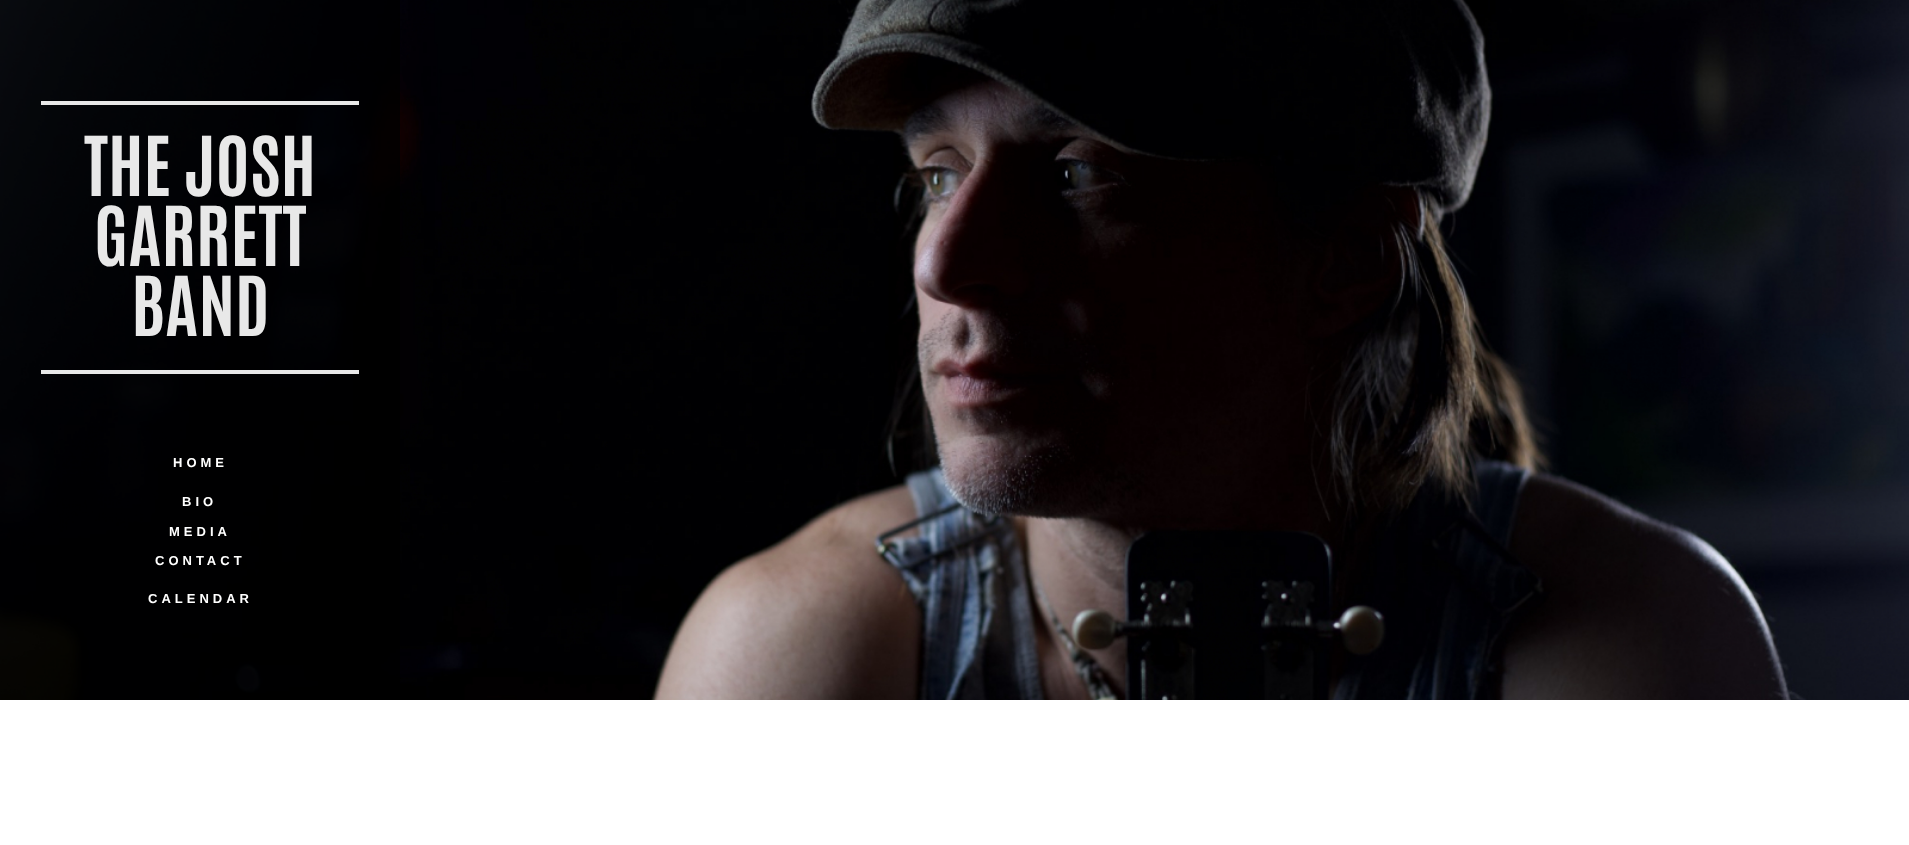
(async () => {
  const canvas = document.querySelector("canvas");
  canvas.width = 1909;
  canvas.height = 845;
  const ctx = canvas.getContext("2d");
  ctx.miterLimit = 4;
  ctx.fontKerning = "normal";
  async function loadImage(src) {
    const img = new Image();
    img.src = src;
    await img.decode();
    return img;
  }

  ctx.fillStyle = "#ffffff";
  ctx.fillRect(0, 0, 1909, 845);
  ctx.drawImage(await loadImage("img/1.png"), 0, 0, 1909, 700);
  for (const [x, y, w, h, color] of [
    [0, 0, 400, 700, "rgba(0, 0, 0, 0.75)"],
    [41, 101, 318, 4, "#e8e8e8"],
    [41, 370, 318, 4, "#e8e8e8"],
  ]) {
    ctx.fillStyle = color;
    ctx.fillRect(x, y, w, h);
  }
  ctx.font = "bold 70px Antonio";
  for (const [text, x, y] of [
    ["THE JOSH", 84, 196],
    ["GARRETT", 94, 266],
    ["BAND", 131, 336],
  ]) {
    ctx.fillText(text, x, y);
  }
  ctx.letterSpacing = "4px";
  ctx.font = "bold 13px Liberation Sans";
  ctx.fillStyle = "#ffffff";
  for (const [text, x, y] of [
    ["HOME", 173, 467],
    ["BIO", 182, 506],
    ["MEDIA", 169, 536],
    ["CONTACT", 155, 565],
    ["CALENDAR", 148, 603],
  ]) {
    ctx.fillText(text, x, y);
  }
})();
